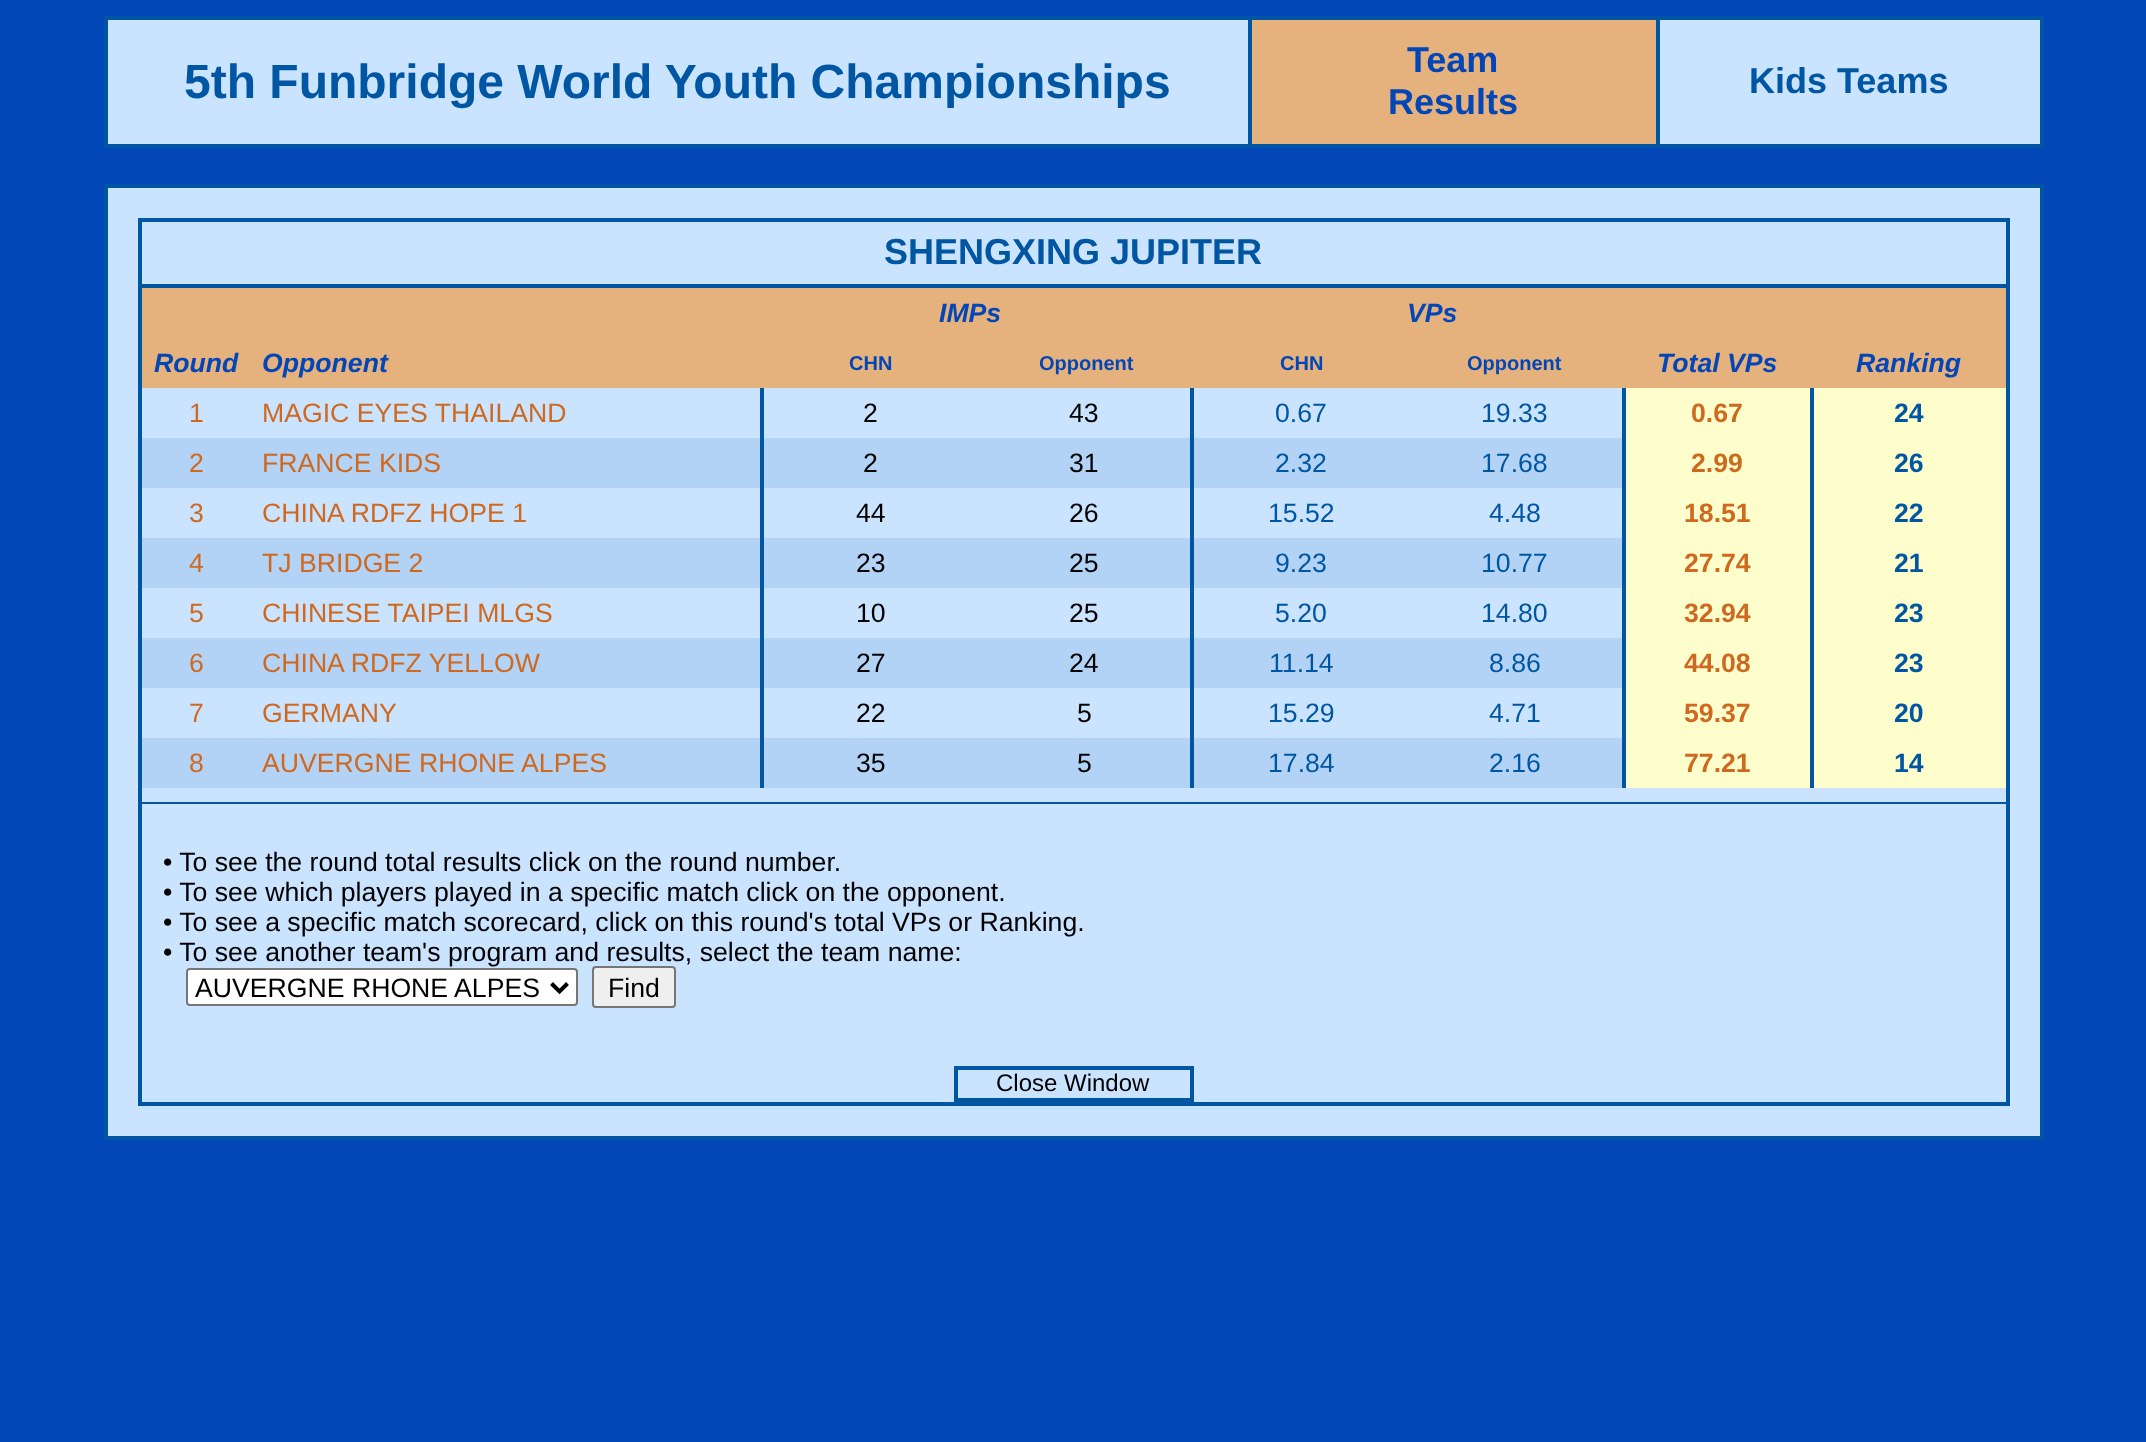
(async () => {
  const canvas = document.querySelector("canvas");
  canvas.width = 2146;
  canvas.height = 1442;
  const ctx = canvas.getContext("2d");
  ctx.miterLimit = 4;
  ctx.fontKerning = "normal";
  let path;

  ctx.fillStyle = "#0246b7";
  ctx.fillRect(0, 0, 2146, 1442);
  ctx.strokeStyle = "#0056a2";
  ctx.lineWidth = 2;
  ctx.strokeRect(105, 17, 1938, 130);
  ctx.fillStyle = "#cae3ff";
  ctx.beginPath();
  ctx.rect(107, 19, 1142, 126);
  ctx.fill();
  ctx.stroke();
  ctx.fillStyle = "#e5b17c";
  ctx.beginPath();
  ctx.rect(1251, 19, 406, 126);
  ctx.fill();
  ctx.stroke();
  ctx.fillStyle = "#cae3ff";
  ctx.beginPath();
  ctx.rect(1659, 19, 382, 126);
  ctx.fill();
  ctx.stroke();
  ctx.fillRect(108, 188, 1932, 948);
  ctx.strokeRect(105, 185, 1938, 954);
  ctx.strokeRect(107, 187, 1934, 950);
  ctx.strokeRect(139, 219, 1870, 886);
  ctx.strokeRect(141, 221, 1866, 882);
  for (const [x, y, w, h, color] of [
    [142, 284, 1864, 4, "#0056a2"],
    [142, 288, 1864, 50, "#e5b17c"],
    [142, 338, 1864, 50, "#e5b17c"],
    [760, 388, 4, 50, "#0056a2"],
    [1190, 388, 4, 50, "#0056a2"],
    [1626, 388, 184, 400, "#fdfecc"],
    [1810, 388, 4, 400, "#0056a2"],
    [1622, 388, 4, 400, "#0056a2"],
    [1814, 388, 192, 400, "#fdfecc"],
    [142, 438, 1480, 50, "#b2d3f5"],
    [760, 438, 4, 100, "#0056a2"],
    [1190, 438, 4, 100, "#0056a2"],
    [142, 538, 1480, 50, "#b2d3f5"],
    [760, 538, 4, 100, "#0056a2"],
    [1190, 538, 4, 100, "#0056a2"],
    [142, 638, 1480, 50, "#b2d3f5"],
    [760, 638, 4, 100, "#0056a2"],
    [1190, 638, 4, 100, "#0056a2"],
    [142, 738, 1480, 50, "#b2d3f5"],
    [760, 738, 4, 50, "#0056a2"],
    [1190, 738, 4, 50, "#0056a2"],
    [142, 802, 1864, 2, "#0056a2"],
  ]) {
    ctx.fillStyle = color;
    ctx.fillRect(x, y, w, h);
  }
  ctx.fillStyle = "#ffffff";
  ctx.beginPath();
  ctx.roundRect(187, 969, 390, 36, 3);
  ctx.fill();
  ctx.strokeStyle = "#767676";
  ctx.stroke();
  path = new Path2D("M551.5 983.5L559.5 991.5L567.5 983.5");
  ctx.strokeStyle = "#000000";
  ctx.lineWidth = 4;
  ctx.stroke(path);
  ctx.strokeStyle = "#0056a2";
  ctx.lineWidth = 2;
  ctx.strokeRect(955, 1067, 238, 34);
  ctx.strokeRect(957, 1069, 234, 30);
  ctx.font = "bold 48px Liberation Sans";
  ctx.fillStyle = "#0056a2";
  ctx.fillText("5th Funbridge World Youth Championships", 184, 98);
  ctx.font = "bold 36px Liberation Sans";
  ctx.fillStyle = "#0246b7";
  ctx.fillText("Team", 1407, 72);
  ctx.fillText("Results", 1388, 114);
  ctx.fillStyle = "#0056a2";
  ctx.fillText("Kids Teams", 1749, 93);
  ctx.fillText("SHENGXING JUPITER", 884, 264);
  ctx.font = "italic bold 26.65px Liberation Sans";
  ctx.fillStyle = "#0246b7";
  for (const [text, x, y] of [
    ["IMPs", 939, 322],
    ["VPs", 1407, 322],
    ["Round", 154, 372],
    ["Opponent", 262, 372],
  ]) {
    ctx.fillText(text, x, y);
  }
  ctx.font = "bold 20px Liberation Sans";
  for (const [text, x, y] of [
    ["CHN", 849, 370],
    ["Opponent", 1039, 370],
    ["CHN", 1280, 370],
    ["Opponent", 1467, 370],
  ]) {
    ctx.fillText(text, x, y);
  }
  ctx.font = "italic bold 26.65px Liberation Sans";
  ctx.fillText("Total VPs", 1657, 372);
  ctx.fillText("Ranking", 1856, 372);
  ctx.font = "26.65px Liberation Sans";
  ctx.fillStyle = "#cf691f";
  ctx.fillText("1", 189, 422);
  ctx.fillText("MAGIC EYES THAILAND", 262, 422);
  ctx.fillStyle = "#000000";
  ctx.fillText("2", 863, 422);
  ctx.fillText("43", 1069, 422);
  ctx.fillStyle = "#0056a2";
  ctx.fillText("0.67", 1275, 422);
  ctx.fillText("19.33", 1481, 422);
  ctx.font = "bold 26.65px Liberation Sans";
  ctx.fillStyle = "#cf691f";
  ctx.fillText("0.67", 1691, 422);
  ctx.fillStyle = "#0056a2";
  ctx.fillText("24", 1894, 422);
  ctx.font = "26.65px Liberation Sans";
  ctx.fillStyle = "#cf691f";
  ctx.fillText("2", 189, 472);
  ctx.fillText("FRANCE KIDS", 262, 472);
  ctx.fillStyle = "#000000";
  ctx.fillText("2", 863, 472);
  ctx.fillText("31", 1069, 472);
  ctx.fillStyle = "#0056a2";
  ctx.fillText("2.32", 1275, 472);
  ctx.fillText("17.68", 1481, 472);
  ctx.font = "bold 26.65px Liberation Sans";
  ctx.fillStyle = "#cf691f";
  ctx.fillText("2.99", 1691, 472);
  ctx.fillStyle = "#0056a2";
  ctx.fillText("26", 1894, 472);
  ctx.font = "26.65px Liberation Sans";
  ctx.fillStyle = "#cf691f";
  ctx.fillText("3", 189, 522);
  ctx.fillText("CHINA RDFZ HOPE 1", 262, 522);
  ctx.fillStyle = "#000000";
  ctx.fillText("44", 856, 522);
  ctx.fillText("26", 1069, 522);
  ctx.fillStyle = "#0056a2";
  ctx.fillText("15.52", 1268, 522);
  ctx.fillText("4.48", 1489, 522);
  ctx.font = "bold 26.65px Liberation Sans";
  ctx.fillStyle = "#cf691f";
  ctx.fillText("18.51", 1684, 522);
  ctx.fillStyle = "#0056a2";
  ctx.fillText("22", 1894, 522);
  ctx.font = "26.65px Liberation Sans";
  ctx.fillStyle = "#cf691f";
  ctx.fillText("4", 189, 572);
  ctx.fillText("TJ BRIDGE 2", 262, 572);
  ctx.fillStyle = "#000000";
  ctx.fillText("23", 856, 572);
  ctx.fillText("25", 1069, 572);
  ctx.fillStyle = "#0056a2";
  ctx.fillText("9.23", 1275, 572);
  ctx.fillText("10.77", 1481, 572);
  ctx.font = "bold 26.65px Liberation Sans";
  ctx.fillStyle = "#cf691f";
  ctx.fillText("27.74", 1684, 572);
  ctx.fillStyle = "#0056a2";
  ctx.fillText("21", 1894, 572);
  ctx.font = "26.65px Liberation Sans";
  ctx.fillStyle = "#cf691f";
  ctx.fillText("5", 189, 622);
  ctx.fillText("CHINESE TAIPEI MLGS", 262, 622);
  ctx.fillStyle = "#000000";
  ctx.fillText("10", 856, 622);
  ctx.fillText("25", 1069, 622);
  ctx.fillStyle = "#0056a2";
  ctx.fillText("5.20", 1275, 622);
  ctx.fillText("14.80", 1481, 622);
  ctx.font = "bold 26.65px Liberation Sans";
  ctx.fillStyle = "#cf691f";
  ctx.fillText("32.94", 1684, 622);
  ctx.fillStyle = "#0056a2";
  ctx.fillText("23", 1894, 622);
  ctx.font = "26.65px Liberation Sans";
  ctx.fillStyle = "#cf691f";
  ctx.fillText("6", 189, 672);
  ctx.fillText("CHINA RDFZ YELLOW", 262, 672);
  ctx.fillStyle = "#000000";
  ctx.fillText("27", 856, 672);
  ctx.fillText("24", 1069, 672);
  ctx.fillStyle = "#0056a2";
  ctx.fillText("11.14", 1269, 672);
  ctx.fillText("8.86", 1489, 672);
  ctx.font = "bold 26.65px Liberation Sans";
  ctx.fillStyle = "#cf691f";
  ctx.fillText("44.08", 1684, 672);
  ctx.fillStyle = "#0056a2";
  ctx.fillText("23", 1894, 672);
  ctx.font = "26.65px Liberation Sans";
  ctx.fillStyle = "#cf691f";
  ctx.fillText("7", 189, 722);
  ctx.fillText("GERMANY", 262, 722);
  ctx.fillStyle = "#000000";
  ctx.fillText("22", 856, 722);
  ctx.fillText("5", 1077, 722);
  ctx.fillStyle = "#0056a2";
  ctx.fillText("15.29", 1268, 722);
  ctx.fillText("4.71", 1489, 722);
  ctx.font = "bold 26.65px Liberation Sans";
  ctx.fillStyle = "#cf691f";
  ctx.fillText("59.37", 1684, 722);
  ctx.fillStyle = "#0056a2";
  ctx.fillText("20", 1894, 722);
  ctx.font = "26.65px Liberation Sans";
  ctx.fillStyle = "#cf691f";
  ctx.fillText("8", 189, 772);
  ctx.fillText("AUVERGNE RHONE ALPES", 262, 772);
  ctx.fillStyle = "#000000";
  ctx.fillText("35", 856, 772);
  ctx.fillText("5", 1077, 772);
  ctx.fillStyle = "#0056a2";
  ctx.fillText("17.84", 1268, 772);
  ctx.fillText("2.16", 1489, 772);
  ctx.font = "bold 26.65px Liberation Sans";
  ctx.fillStyle = "#cf691f";
  ctx.fillText("77.21", 1684, 772);
  ctx.fillStyle = "#0056a2";
  ctx.fillText("14", 1894, 772);
  ctx.font = "26.65px Liberation Sans";
  ctx.fillStyle = "#000000";
  for (const [text, x, y] of [
    ["• To see the round total results click on the round number.", 163, 871],
    ["• To see which players played in a specific match click on the opponent.", 163, 901],
    ["• To see a specific match scorecard, click on this round's total VPs or Ranking.", 163, 931],
    ["• To see another team's program and results, select the team name:", 163, 961],
    ["AUVERGNE RHONE ALPES", 195, 997],
  ]) {
    ctx.fillText(text, x, y);
  }
  ctx.fillStyle = "#efefef";
  ctx.beginPath();
  ctx.roundRect(593, 967, 82, 40, 3);
  ctx.fill();
  ctx.strokeStyle = "#767676";
  ctx.stroke();
  ctx.fillStyle = "#000000";
  ctx.fillText("Find", 608, 997);
  ctx.font = "24px Liberation Sans";
  ctx.fillText("Close Window", 996, 1091);
})();
